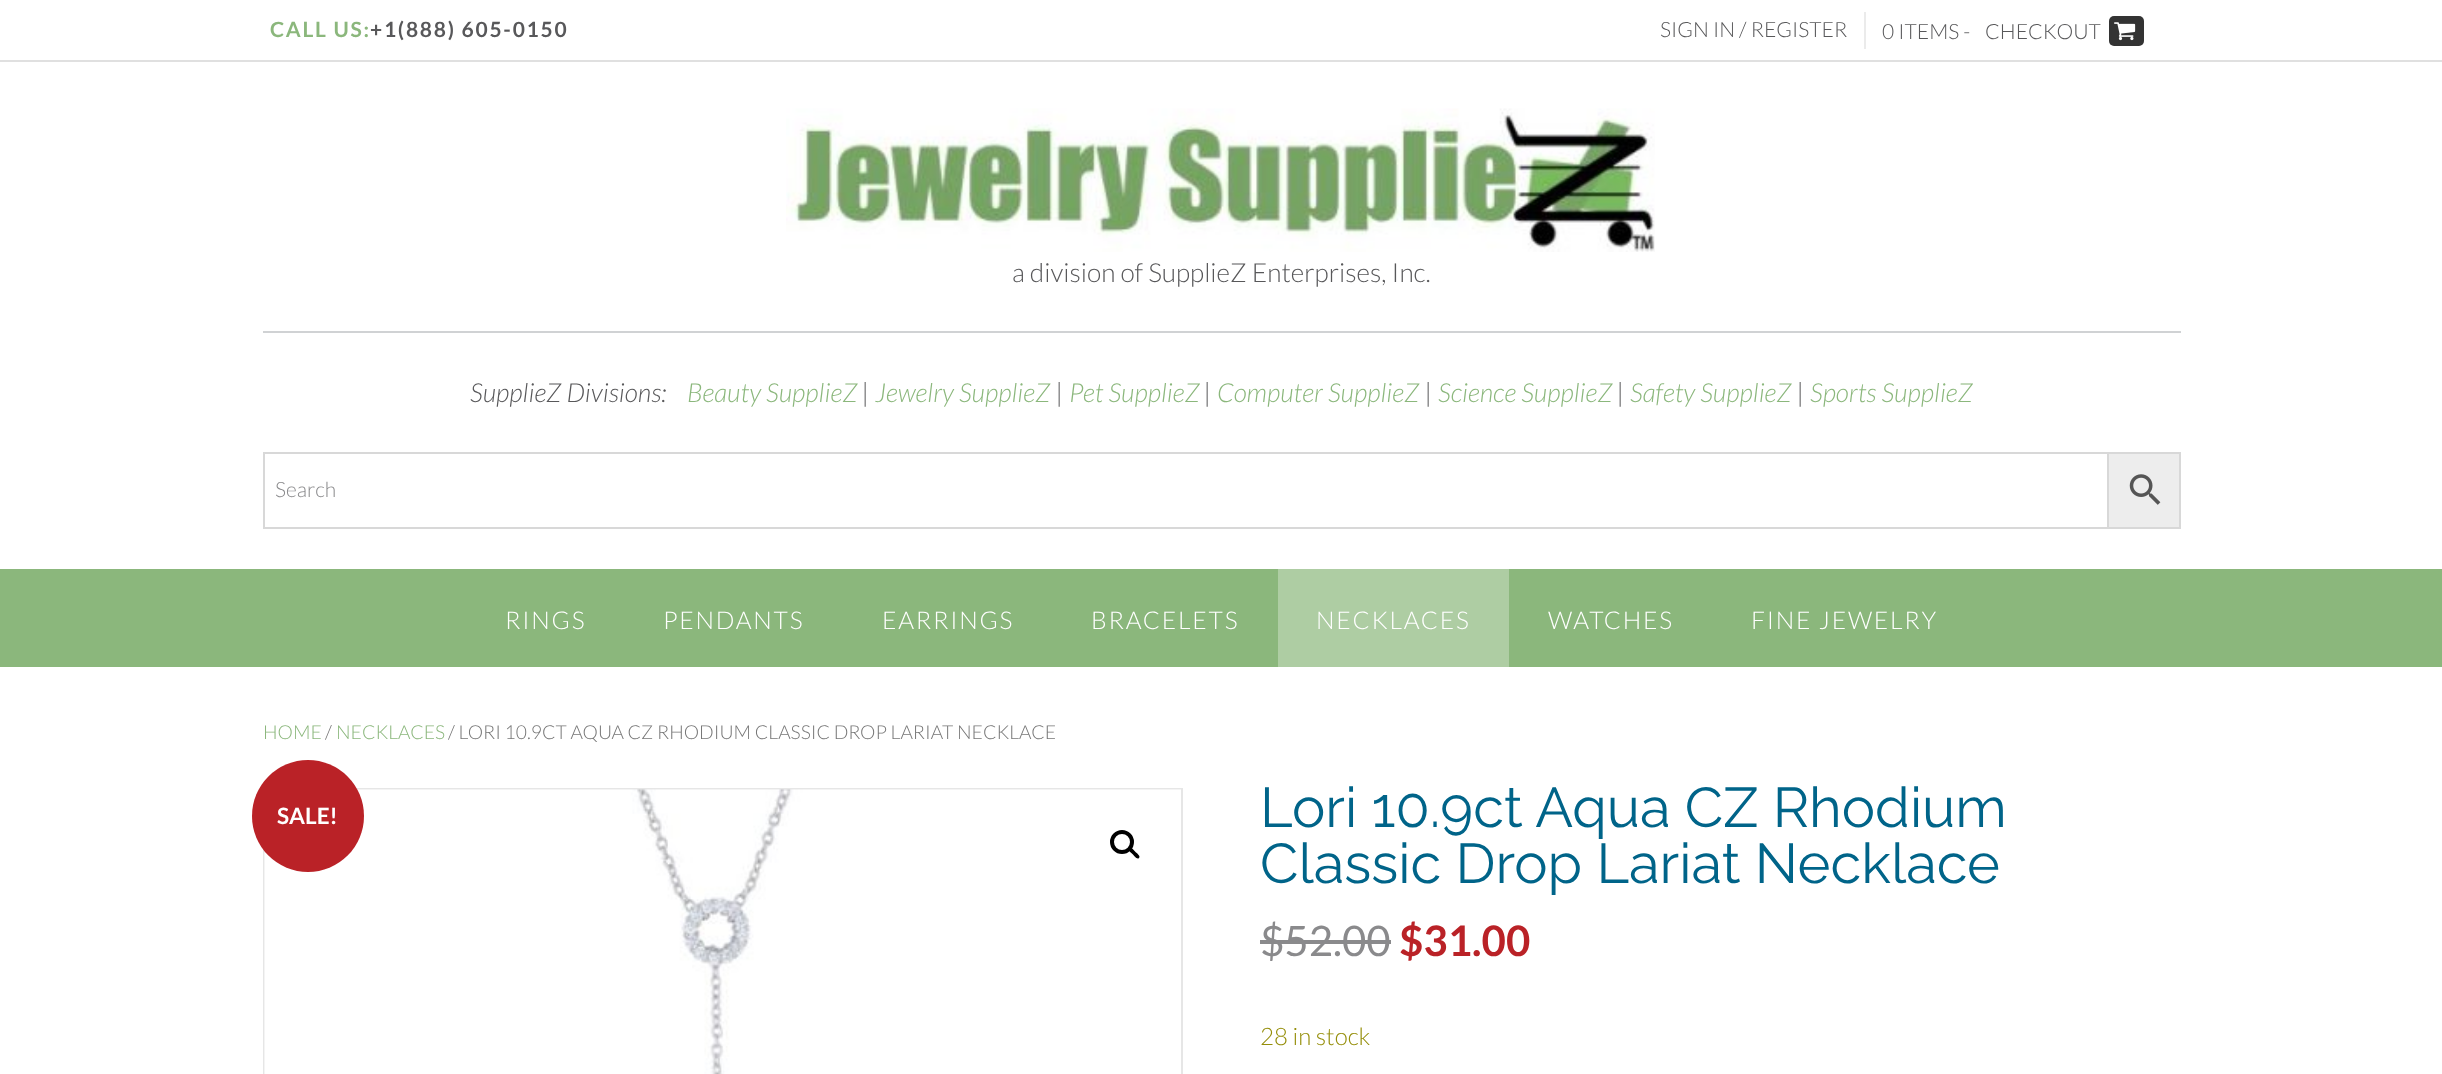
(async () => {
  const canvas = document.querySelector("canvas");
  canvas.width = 2442;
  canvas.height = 1074;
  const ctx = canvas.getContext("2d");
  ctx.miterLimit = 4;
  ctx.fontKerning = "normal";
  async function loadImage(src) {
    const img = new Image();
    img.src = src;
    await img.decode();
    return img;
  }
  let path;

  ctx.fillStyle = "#ffffff";
  ctx.fillRect(0, 0, 2442, 1074);
  ctx.fillStyle = "#e0e0e0";
  ctx.fillRect(0, 60, 2442, 2);
  ctx.fillStyle = "#ebebeb";
  path = new Path2D("M1652 12H1864V49H1866V12Z");
  ctx.fill(path);
  ctx.fillStyle = "#333333";
  ctx.beginPath();
  ctx.roundRect(2109, 16, 35, 30, 5);
  ctx.fill();
  ctx.drawImage(await loadImage("img/1.png"), 2114, 22, 22, 19);
  ctx.drawImage(await loadImage("img/2.png"), 786, 108, 869, 144);
  ctx.fillStyle = "#d0d2d4";
  ctx.fillRect(263, 331, 1918, 2);
  ctx.fillStyle = "#ededed";
  ctx.beginPath();
  ctx.rect(2108, 453, 72, 75);
  ctx.fill();
  ctx.strokeStyle = "#d8d8d8";
  ctx.lineWidth = 2;
  ctx.stroke();
  ctx.strokeRect(264, 453, 1844, 75);
  ctx.drawImage(await loadImage("img/3.png"), 2129, 474, 32, 31);
  ctx.fillStyle = "#8bb77c";
  ctx.fillRect(0, 569, 2442, 98);
  ctx.fillStyle = "#aecda3";
  ctx.fillRect(1278, 569, 231, 98);
  ctx.strokeStyle = "#e6e6e6";
  ctx.strokeRect(264, 789, 918, 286);
  ctx.drawImage(await loadImage("img/4.png"), 264, 789, 917, 285);
  ctx.beginPath();
  ctx.arc(1122, 842, 10, 0, Math.PI * 2);
  ctx.strokeStyle = "#000000";
  ctx.lineWidth = 4;
  ctx.stroke();
  ctx.fillStyle = "#000000";
  path = new Path2D("M1129 848C1131 846 1134.5 851 1135.5 852C1136.5 853 1141 856 1139 858C1137 860 1134 855.5 1133 854.5C1132 853.5 1127 850 1129 848Z");
  ctx.fill(path);
  ctx.fillStyle = "#8a8a8c";
  ctx.fillRect(1260, 940, 131, 4);
  ctx.fillStyle = "#ba2227";
  ctx.beginPath();
  ctx.arc(308, 816, 56, 0, Math.PI * 2);
  ctx.fill();
  ctx.letterSpacing = "1.75px";
  ctx.font = "bold 21px Lato";
  ctx.fillStyle = "#8bb77c";
  ctx.fillText("CALL US:", 270, 37);
  ctx.fillStyle = "#58585a";
  ctx.fillText("+1(888) 605-0150", 370, 37);
  ctx.letterSpacing = "0px";
  ctx.font = "300 21px Lato";
  for (const [text, x, y] of [
    ["SIGN IN / REGISTER", 1660, 37],
    ["0 ITEMS -", 1882, 39],
    ["CHECKOUT", 1985, 39],
  ]) {
    ctx.fillText(text, x, y);
  }
  ctx.font = "300 26.25px Lato";
  ctx.fillText("a division of SupplieZ Enterprises, Inc.", 1012, 282);
  ctx.font = "italic 300 26.25px Lato";
  ctx.fillText("SupplieZ Divisions:", 470, 402);
  ctx.fillStyle = "#8bb77c";
  ctx.fillText("Beauty SupplieZ", 687, 402);
  ctx.fillStyle = "#58585a";
  ctx.fillText("|", 862, 402);
  ctx.fillStyle = "#8bb77c";
  ctx.fillText("Jewelry SupplieZ", 875, 402);
  ctx.fillStyle = "#58585a";
  ctx.fillText("|", 1056, 402);
  ctx.fillStyle = "#8bb77c";
  ctx.fillText("Pet SupplieZ", 1069, 402);
  ctx.fillStyle = "#58585a";
  ctx.fillText("|", 1204, 402);
  ctx.fillStyle = "#8bb77c";
  ctx.fillText("Computer SupplieZ", 1217, 402);
  ctx.fillStyle = "#58585a";
  ctx.fillText("|", 1425, 402);
  ctx.fillStyle = "#8bb77c";
  ctx.fillText("Science SupplieZ", 1438, 402);
  ctx.fillStyle = "#58585a";
  ctx.fillText("|", 1617, 402);
  ctx.fillStyle = "#8bb77c";
  ctx.fillText("Safety SupplieZ", 1630, 402);
  ctx.fillStyle = "#58585a";
  ctx.fillText("|", 1797, 402);
  ctx.fillStyle = "#8bb77c";
  ctx.fillText("Sports SupplieZ", 1810, 402);
  ctx.font = "300 21px Lato";
  ctx.fillStyle = "#8a8a8c";
  ctx.fillText("Search", 275, 497);
  ctx.letterSpacing = "1.75px";
  ctx.font = "300 24.5px Lato";
  ctx.fillStyle = "#ffffff";
  for (const [text, x, y] of [
    ["RINGS", 505, 629],
    ["PENDANTS", 663, 629],
    ["EARRINGS", 882, 629],
    ["BRACELETS", 1091, 629],
    ["NECKLACES", 1316, 629],
    ["WATCHES", 1548, 629],
    ["FINE JEWELRY", 1751, 629],
  ]) {
    ctx.fillText(text, x, y);
  }
  ctx.letterSpacing = "0px";
  ctx.font = "300 19.25px Lato";
  ctx.fillStyle = "#8bb77c";
  ctx.fillText("HOME", 263, 739);
  ctx.fillStyle = "#777777";
  ctx.fillText("/", 325, 739);
  ctx.fillStyle = "#8bb77c";
  ctx.fillText("NECKLACES", 336, 739);
  ctx.fillStyle = "#777777";
  ctx.fillText("/ LORI 10.9CT AQUA CZ RHODIUM CLASSIC DROP LARIAT NECKLACE", 448, 739);
  ctx.font = "56px Raleway";
  ctx.fillStyle = "#006489";
  ctx.fillText("Lori 10.9ct Aqua CZ Rhodium", 1260, 827);
  ctx.fillText("Classic Drop Lariat Necklace", 1260, 883);
  ctx.font = "42px Lato";
  ctx.fillStyle = "#8a8a8c";
  ctx.fillText("$52.00", 1260, 956);
  ctx.font = "bold 42px Lato";
  ctx.fillStyle = "#ba2227";
  ctx.fillText("$31.00", 1399, 956);
  ctx.font = "300 24px Lato";
  ctx.fillStyle = "#958e09";
  ctx.fillText("28 in stock", 1260, 1045);
  ctx.font = "bold 22.5px Lato";
  ctx.fillStyle = "#ffffff";
  ctx.fillText("SALE!", 277, 824);
})();
